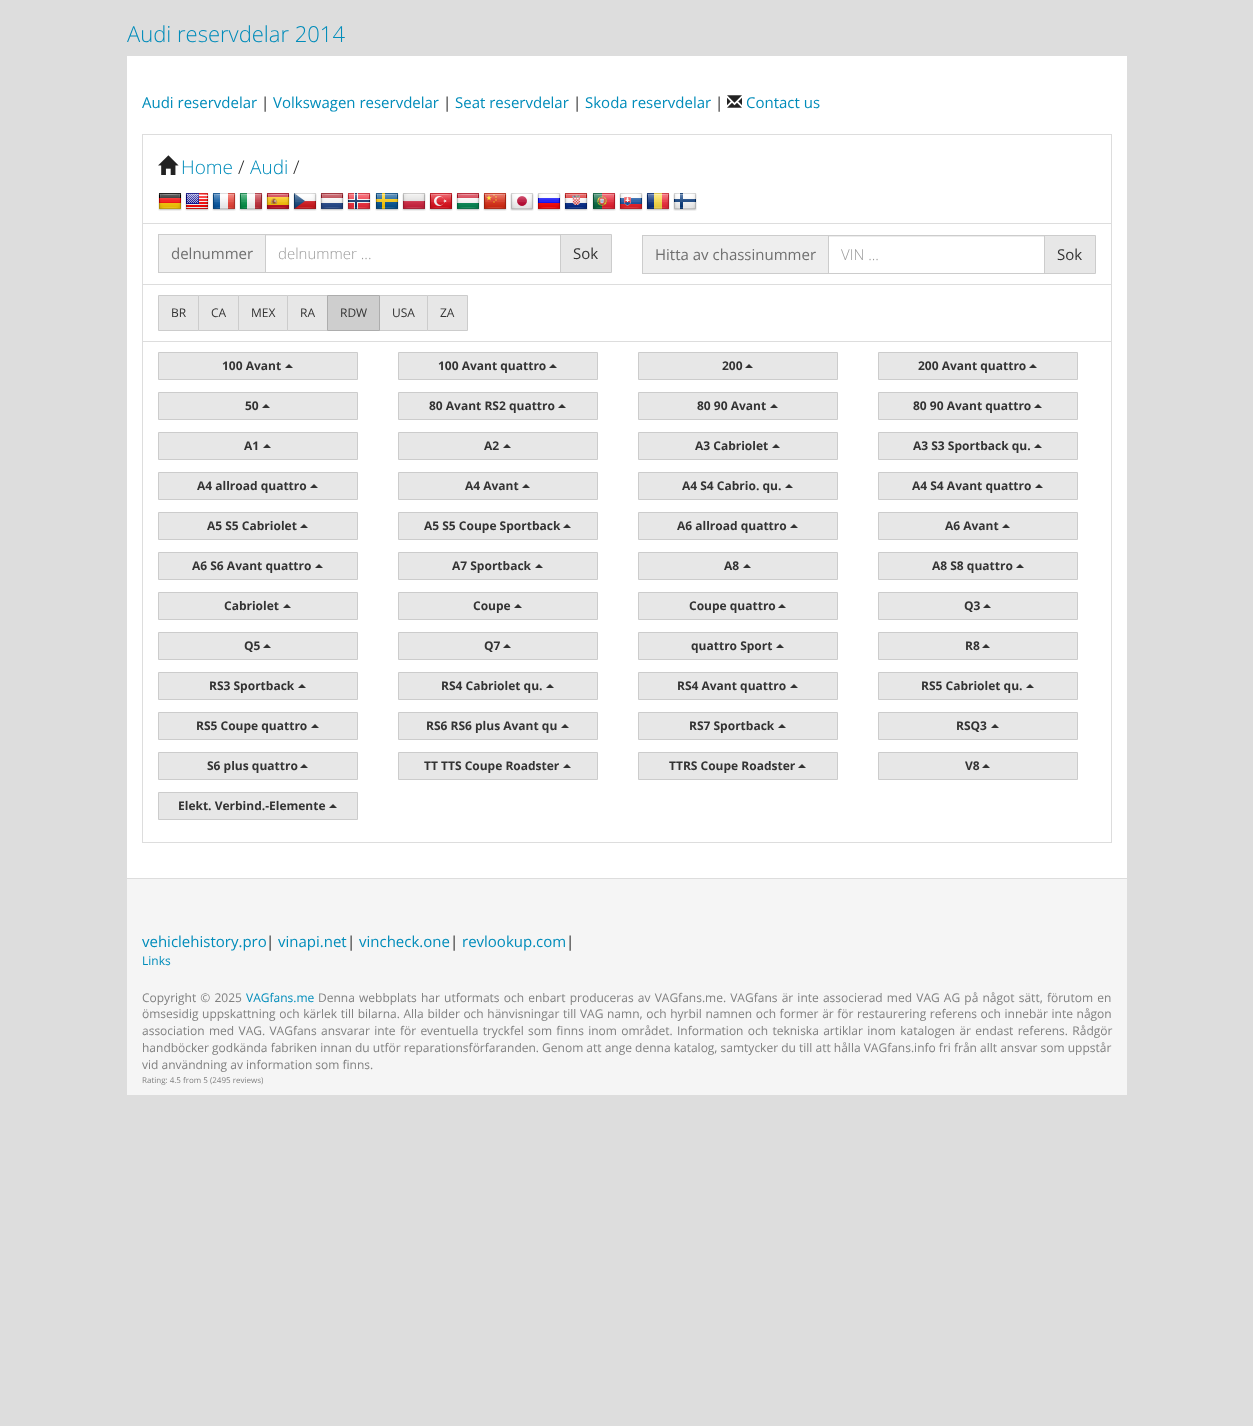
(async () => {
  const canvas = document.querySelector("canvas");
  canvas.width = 1253;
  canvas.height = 1426;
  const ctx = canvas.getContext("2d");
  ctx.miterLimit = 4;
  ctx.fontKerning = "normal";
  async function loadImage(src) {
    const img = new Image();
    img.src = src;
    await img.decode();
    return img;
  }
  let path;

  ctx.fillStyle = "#dddddd";
  ctx.fillRect(0, 0, 1253, 1426);
  ctx.fillStyle = "rgba(0, 0, 0, 0.25)";
  ctx.filter = "blur(0.5px)";
  ctx.beginPath();
  ctx.rect(127, 56, 1000, 1039);
  ctx.fill();
  ctx.filter = "none";
  ctx.fillStyle = "#ffffff";
  ctx.fillRect(127, 56, 1000, 822);
  ctx.drawImage(await loadImage("img/1.png"), 727, 95, 15, 13);
  ctx.strokeStyle = "#dddddd";
  ctx.strokeRect(142.5, 134.5, 969, 89);
  ctx.drawImage(await loadImage("img/2.png"), 158, 155, 21, 20);
  ctx.drawImage(await loadImage("img/3.png"), 158, 193, 24, 18);
  ctx.drawImage(await loadImage("img/4.png"), 185, 193, 24, 18);
  ctx.drawImage(await loadImage("img/5.png"), 212, 193, 24, 18);
  ctx.drawImage(await loadImage("img/6.png"), 239, 193, 24, 18);
  ctx.drawImage(await loadImage("img/7.png"), 266, 193, 24, 18);
  ctx.drawImage(await loadImage("img/8.png"), 293, 193, 24, 18);
  ctx.drawImage(await loadImage("img/9.png"), 320, 193, 24, 18);
  ctx.drawImage(await loadImage("img/10.png"), 347, 193, 24, 18);
  ctx.drawImage(await loadImage("img/11.png"), 375, 193, 24, 18);
  ctx.drawImage(await loadImage("img/12.png"), 402, 193, 24, 18);
  ctx.drawImage(await loadImage("img/13.png"), 429, 193, 24, 18);
  ctx.drawImage(await loadImage("img/14.png"), 456, 193, 24, 18);
  ctx.drawImage(await loadImage("img/15.png"), 483, 193, 24, 18);
  ctx.drawImage(await loadImage("img/16.png"), 510, 193, 24, 18);
  ctx.drawImage(await loadImage("img/17.png"), 537, 193, 24, 18);
  ctx.drawImage(await loadImage("img/18.png"), 564, 193, 24, 18);
  ctx.drawImage(await loadImage("img/19.png"), 592, 193, 24, 18);
  ctx.drawImage(await loadImage("img/20.png"), 619, 193, 24, 18);
  ctx.drawImage(await loadImage("img/21.png"), 646, 193, 24, 18);
  ctx.drawImage(await loadImage("img/22.png"), 673, 193, 24, 18);
  ctx.strokeRect(142.5, 223.5, 969, 61);
  for (const [x, y, w, h, color] of [
    [159, 235, 106, 37, "#eeeeee"],
    [158, 234, 107, 1, "#cccccc"],
    [158, 272, 107, 1, "#cccccc"],
    [158, 234, 1, 39, "#cccccc"],
    [266, 235, 294, 1, "#ececec"],
  ]) {
    ctx.fillStyle = color;
    ctx.fillRect(x, y, w, h);
  }
  ctx.fillStyle = "#e7e7e7";
  ctx.beginPath();
  ctx.rect(560.5, 234.5, 51, 38);
  ctx.fill();
  ctx.strokeStyle = "#cccccc";
  ctx.stroke();
  ctx.strokeRect(265.5, 234.5, 295, 38);
  for (const [x, y, w, h, color] of [
    [643, 236, 185, 37, "#eeeeee"],
    [642, 235, 186, 1, "#cccccc"],
    [642, 273, 186, 1, "#cccccc"],
    [642, 235, 1, 39, "#cccccc"],
    [829, 236, 215, 1, "#ececec"],
  ]) {
    ctx.fillStyle = color;
    ctx.fillRect(x, y, w, h);
  }
  ctx.fillStyle = "#e7e7e7";
  ctx.beginPath();
  ctx.rect(1044.5, 235.5, 51, 38);
  ctx.fill();
  ctx.stroke();
  ctx.strokeRect(828.5, 235.5, 216, 38);
  ctx.strokeStyle = "#dddddd";
  ctx.strokeRect(142.5, 284.5, 969, 57);
  ctx.beginPath();
  ctx.rect(158.5, 295.5, 40, 35);
  ctx.fill();
  ctx.strokeStyle = "#cccccc";
  ctx.stroke();
  ctx.beginPath();
  ctx.rect(198.5, 295.5, 40, 35);
  ctx.fill();
  ctx.stroke();
  ctx.beginPath();
  ctx.rect(238.5, 295.5, 49, 35);
  ctx.fill();
  ctx.stroke();
  ctx.beginPath();
  ctx.rect(287.5, 295.5, 40, 35);
  ctx.fill();
  ctx.stroke();
  ctx.beginPath();
  ctx.rect(379.5, 295.5, 48, 35);
  ctx.fill();
  ctx.stroke();
  ctx.fillStyle = "#cecece";
  ctx.beginPath();
  ctx.rect(327.5, 295.5, 52, 35);
  ctx.fill();
  ctx.strokeStyle = "#adadad";
  ctx.stroke();
  ctx.fillStyle = "#e7e7e7";
  ctx.beginPath();
  ctx.rect(427.5, 295.5, 40, 35);
  ctx.fill();
  ctx.strokeStyle = "#cccccc";
  ctx.stroke();
  ctx.strokeStyle = "#dddddd";
  ctx.strokeRect(142.5, 341.5, 969, 501);
  ctx.beginPath();
  ctx.rect(158.5, 352.5, 199, 27);
  ctx.fill();
  ctx.strokeStyle = "#cccccc";
  ctx.stroke();
  ctx.fillStyle = "#333333";
  path = new Path2D("M293 368H285L289 364Z");
  ctx.fill(path);
  ctx.fillStyle = "#e7e7e7";
  ctx.beginPath();
  ctx.rect(398.5, 352.5, 199, 27);
  ctx.fill();
  ctx.stroke();
  ctx.fillStyle = "#333333";
  path = new Path2D("M557 368H549L553 364Z");
  ctx.fill(path);
  ctx.fillStyle = "#e7e7e7";
  ctx.beginPath();
  ctx.rect(638.5, 352.5, 199, 27);
  ctx.fill();
  ctx.stroke();
  ctx.fillStyle = "#333333";
  path = new Path2D("M753 368H745L749 364Z");
  ctx.fill(path);
  ctx.fillStyle = "#e7e7e7";
  ctx.beginPath();
  ctx.rect(878.5, 352.5, 199, 27);
  ctx.fill();
  ctx.stroke();
  ctx.fillStyle = "#333333";
  path = new Path2D("M1037 368H1029L1033 364Z");
  ctx.fill(path);
  ctx.fillStyle = "#e7e7e7";
  ctx.beginPath();
  ctx.rect(158.5, 392.5, 199, 27);
  ctx.fill();
  ctx.stroke();
  ctx.fillStyle = "#333333";
  path = new Path2D("M270 408H262L266 404Z");
  ctx.fill(path);
  ctx.fillStyle = "#e7e7e7";
  ctx.beginPath();
  ctx.rect(398.5, 392.5, 199, 27);
  ctx.fill();
  ctx.stroke();
  ctx.fillStyle = "#333333";
  path = new Path2D("M566 408H558L562 404Z");
  ctx.fill(path);
  ctx.fillStyle = "#e7e7e7";
  ctx.beginPath();
  ctx.rect(638.5, 392.5, 199, 27);
  ctx.fill();
  ctx.stroke();
  ctx.fillStyle = "#333333";
  path = new Path2D("M778 408H770L774 404Z");
  ctx.fill(path);
  ctx.fillStyle = "#e7e7e7";
  ctx.beginPath();
  ctx.rect(878.5, 392.5, 199, 27);
  ctx.fill();
  ctx.stroke();
  ctx.fillStyle = "#333333";
  path = new Path2D("M1042 408H1034L1038 404Z");
  ctx.fill(path);
  ctx.fillStyle = "#e7e7e7";
  ctx.beginPath();
  ctx.rect(158.5, 432.5, 199, 27);
  ctx.fill();
  ctx.stroke();
  ctx.fillStyle = "#333333";
  path = new Path2D("M271 448H263L267 444Z");
  ctx.fill(path);
  ctx.fillStyle = "#e7e7e7";
  ctx.beginPath();
  ctx.rect(398.5, 432.5, 199, 27);
  ctx.fill();
  ctx.stroke();
  ctx.fillStyle = "#333333";
  path = new Path2D("M511 448H503L507 444Z");
  ctx.fill(path);
  ctx.fillStyle = "#e7e7e7";
  ctx.beginPath();
  ctx.rect(638.5, 432.5, 199, 27);
  ctx.fill();
  ctx.stroke();
  ctx.fillStyle = "#333333";
  path = new Path2D("M780 448H772L776 444Z");
  ctx.fill(path);
  ctx.fillStyle = "#e7e7e7";
  ctx.beginPath();
  ctx.rect(878.5, 432.5, 199, 27);
  ctx.fill();
  ctx.stroke();
  ctx.fillStyle = "#333333";
  path = new Path2D("M1042 448H1034L1038 444Z");
  ctx.fill(path);
  ctx.fillStyle = "#e7e7e7";
  ctx.beginPath();
  ctx.rect(158.5, 472.5, 199, 27);
  ctx.fill();
  ctx.stroke();
  ctx.fillStyle = "#333333";
  path = new Path2D("M318 488H310L314 484Z");
  ctx.fill(path);
  ctx.fillStyle = "#e7e7e7";
  ctx.beginPath();
  ctx.rect(398.5, 472.5, 199, 27);
  ctx.fill();
  ctx.stroke();
  ctx.fillStyle = "#333333";
  path = new Path2D("M530 488H522L526 484Z");
  ctx.fill(path);
  ctx.fillStyle = "#e7e7e7";
  ctx.beginPath();
  ctx.rect(638.5, 472.5, 199, 27);
  ctx.fill();
  ctx.stroke();
  ctx.fillStyle = "#333333";
  path = new Path2D("M793 488H785L789 484Z");
  ctx.fill(path);
  ctx.fillStyle = "#e7e7e7";
  ctx.beginPath();
  ctx.rect(878.5, 472.5, 199, 27);
  ctx.fill();
  ctx.stroke();
  ctx.fillStyle = "#333333";
  path = new Path2D("M1043 488H1035L1039 484Z");
  ctx.fill(path);
  ctx.fillStyle = "#e7e7e7";
  ctx.beginPath();
  ctx.rect(158.5, 512.5, 199, 27);
  ctx.fill();
  ctx.stroke();
  ctx.fillStyle = "#333333";
  path = new Path2D("M308 528H300L304 524Z");
  ctx.fill(path);
  ctx.fillStyle = "#e7e7e7";
  ctx.beginPath();
  ctx.rect(398.5, 512.5, 199, 27);
  ctx.fill();
  ctx.stroke();
  ctx.fillStyle = "#333333";
  path = new Path2D("M571 528H563L567 524Z");
  ctx.fill(path);
  ctx.fillStyle = "#e7e7e7";
  ctx.beginPath();
  ctx.rect(638.5, 512.5, 199, 27);
  ctx.fill();
  ctx.stroke();
  ctx.fillStyle = "#333333";
  path = new Path2D("M798 528H790L794 524Z");
  ctx.fill(path);
  ctx.fillStyle = "#e7e7e7";
  ctx.beginPath();
  ctx.rect(878.5, 512.5, 199, 27);
  ctx.fill();
  ctx.stroke();
  ctx.fillStyle = "#333333";
  path = new Path2D("M1010 528H1002L1006 524Z");
  ctx.fill(path);
  ctx.fillStyle = "#e7e7e7";
  ctx.beginPath();
  ctx.rect(158.5, 552.5, 199, 27);
  ctx.fill();
  ctx.stroke();
  ctx.fillStyle = "#333333";
  path = new Path2D("M323 568H315L319 564Z");
  ctx.fill(path);
  ctx.fillStyle = "#e7e7e7";
  ctx.beginPath();
  ctx.rect(398.5, 552.5, 199, 27);
  ctx.fill();
  ctx.stroke();
  ctx.fillStyle = "#333333";
  path = new Path2D("M543 568H535L539 564Z");
  ctx.fill(path);
  ctx.fillStyle = "#e7e7e7";
  ctx.beginPath();
  ctx.rect(638.5, 552.5, 199, 27);
  ctx.fill();
  ctx.stroke();
  ctx.fillStyle = "#333333";
  path = new Path2D("M751 568H743L747 564Z");
  ctx.fill(path);
  ctx.fillStyle = "#e7e7e7";
  ctx.beginPath();
  ctx.rect(878.5, 552.5, 199, 27);
  ctx.fill();
  ctx.stroke();
  ctx.fillStyle = "#333333";
  path = new Path2D("M1024 568H1016L1020 564Z");
  ctx.fill(path);
  ctx.fillStyle = "#e7e7e7";
  ctx.beginPath();
  ctx.rect(158.5, 592.5, 199, 27);
  ctx.fill();
  ctx.stroke();
  ctx.fillStyle = "#333333";
  path = new Path2D("M291 608H283L287 604Z");
  ctx.fill(path);
  ctx.fillStyle = "#e7e7e7";
  ctx.beginPath();
  ctx.rect(398.5, 592.5, 199, 27);
  ctx.fill();
  ctx.stroke();
  ctx.fillStyle = "#333333";
  path = new Path2D("M522 608H514L518 604Z");
  ctx.fill(path);
  ctx.fillStyle = "#e7e7e7";
  ctx.beginPath();
  ctx.rect(638.5, 592.5, 199, 27);
  ctx.fill();
  ctx.stroke();
  ctx.fillStyle = "#333333";
  path = new Path2D("M786 608H778L782 604Z");
  ctx.fill(path);
  ctx.fillStyle = "#e7e7e7";
  ctx.beginPath();
  ctx.rect(878.5, 592.5, 199, 27);
  ctx.fill();
  ctx.stroke();
  ctx.fillStyle = "#333333";
  path = new Path2D("M991 608H983L987 604Z");
  ctx.fill(path);
  ctx.fillStyle = "#e7e7e7";
  ctx.beginPath();
  ctx.rect(158.5, 632.5, 199, 27);
  ctx.fill();
  ctx.stroke();
  ctx.fillStyle = "#333333";
  path = new Path2D("M271 648H263L267 644Z");
  ctx.fill(path);
  ctx.fillStyle = "#e7e7e7";
  ctx.beginPath();
  ctx.rect(398.5, 632.5, 199, 27);
  ctx.fill();
  ctx.stroke();
  ctx.fillStyle = "#333333";
  path = new Path2D("M511 648H503L507 644Z");
  ctx.fill(path);
  ctx.fillStyle = "#e7e7e7";
  ctx.beginPath();
  ctx.rect(638.5, 632.5, 199, 27);
  ctx.fill();
  ctx.stroke();
  ctx.fillStyle = "#333333";
  path = new Path2D("M784 648H776L780 644Z");
  ctx.fill(path);
  ctx.fillStyle = "#e7e7e7";
  ctx.beginPath();
  ctx.rect(878.5, 632.5, 199, 27);
  ctx.fill();
  ctx.stroke();
  ctx.fillStyle = "#333333";
  path = new Path2D("M990 648H982L986 644Z");
  ctx.fill(path);
  ctx.fillStyle = "#e7e7e7";
  ctx.beginPath();
  ctx.rect(158.5, 672.5, 199, 27);
  ctx.fill();
  ctx.stroke();
  ctx.fillStyle = "#333333";
  path = new Path2D("M306 688H298L302 684Z");
  ctx.fill(path);
  ctx.fillStyle = "#e7e7e7";
  ctx.beginPath();
  ctx.rect(398.5, 672.5, 199, 27);
  ctx.fill();
  ctx.stroke();
  ctx.fillStyle = "#333333";
  path = new Path2D("M554 688H546L550 684Z");
  ctx.fill(path);
  ctx.fillStyle = "#e7e7e7";
  ctx.beginPath();
  ctx.rect(638.5, 672.5, 199, 27);
  ctx.fill();
  ctx.stroke();
  ctx.fillStyle = "#333333";
  path = new Path2D("M798 688H790L794 684Z");
  ctx.fill(path);
  ctx.fillStyle = "#e7e7e7";
  ctx.beginPath();
  ctx.rect(878.5, 672.5, 199, 27);
  ctx.fill();
  ctx.stroke();
  ctx.fillStyle = "#333333";
  path = new Path2D("M1034 688H1026L1030 684Z");
  ctx.fill(path);
  ctx.fillStyle = "#e7e7e7";
  ctx.beginPath();
  ctx.rect(158.5, 712.5, 199, 27);
  ctx.fill();
  ctx.stroke();
  ctx.fillStyle = "#333333";
  path = new Path2D("M319 728H311L315 724Z");
  ctx.fill(path);
  ctx.fillStyle = "#e7e7e7";
  ctx.beginPath();
  ctx.rect(398.5, 712.5, 199, 27);
  ctx.fill();
  ctx.stroke();
  ctx.fillStyle = "#333333";
  path = new Path2D("M569 728H561L565 724Z");
  ctx.fill(path);
  ctx.fillStyle = "#e7e7e7";
  ctx.beginPath();
  ctx.rect(638.5, 712.5, 199, 27);
  ctx.fill();
  ctx.stroke();
  ctx.fillStyle = "#333333";
  path = new Path2D("M786 728H778L782 724Z");
  ctx.fill(path);
  ctx.fillStyle = "#e7e7e7";
  ctx.beginPath();
  ctx.rect(878.5, 712.5, 199, 27);
  ctx.fill();
  ctx.stroke();
  ctx.fillStyle = "#333333";
  path = new Path2D("M999 728H991L995 724Z");
  ctx.fill(path);
  ctx.fillStyle = "#e7e7e7";
  ctx.beginPath();
  ctx.rect(158.5, 752.5, 199, 27);
  ctx.fill();
  ctx.stroke();
  ctx.fillStyle = "#333333";
  path = new Path2D("M308 768H300L304 764Z");
  ctx.fill(path);
  ctx.fillStyle = "#e7e7e7";
  ctx.beginPath();
  ctx.rect(398.5, 752.5, 199, 27);
  ctx.fill();
  ctx.stroke();
  ctx.fillStyle = "#333333";
  path = new Path2D("M571 768H563L567 764Z");
  ctx.fill(path);
  ctx.fillStyle = "#e7e7e7";
  ctx.beginPath();
  ctx.rect(638.5, 752.5, 199, 27);
  ctx.fill();
  ctx.stroke();
  ctx.fillStyle = "#333333";
  path = new Path2D("M806 768H798L802 764Z");
  ctx.fill(path);
  ctx.fillStyle = "#e7e7e7";
  ctx.beginPath();
  ctx.rect(878.5, 752.5, 199, 27);
  ctx.fill();
  ctx.stroke();
  ctx.fillStyle = "#333333";
  path = new Path2D("M990 768H982L986 764Z");
  ctx.fill(path);
  ctx.fillStyle = "#e7e7e7";
  ctx.beginPath();
  ctx.rect(158.5, 792.5, 199, 27);
  ctx.fill();
  ctx.stroke();
  ctx.fillStyle = "#333333";
  path = new Path2D("M337 808H329L333 804Z");
  ctx.fill(path);
  ctx.fillStyle = "#f5f5f5";
  ctx.fillRect(127, 879, 1000, 216);
  ctx.fillStyle = "#dddddd";
  ctx.fillRect(127, 878, 1000, 1);
  ctx.font = "300 22px Open Sans";
  ctx.fillStyle = "#008cba";
  ctx.fillText("Audi reservdelar 2014", 127, 42);
  ctx.font = "15px Open Sans";
  ctx.fillText("Audi reservdelar", 142, 108);
  ctx.fillStyle = "#222222";
  ctx.fillText("|", 261, 108);
  ctx.fillStyle = "#008cba";
  ctx.fillText("Volkswagen reservdelar", 273, 108);
  ctx.fillStyle = "#222222";
  ctx.fillText("|", 443, 108);
  ctx.fillStyle = "#008cba";
  ctx.fillText("Seat reservdelar", 455, 108);
  ctx.fillStyle = "#222222";
  ctx.fillText("|", 573, 108);
  ctx.fillStyle = "#008cba";
  ctx.fillText("Skoda reservdelar", 585, 108);
  ctx.fillStyle = "#222222";
  ctx.fillText("|", 715, 108);
  ctx.fillStyle = "#008cba";
  ctx.fillText("Contact us", 746, 108);
  ctx.font = "300 19px Open Sans";
  ctx.fillText("Home", 181, 174);
  ctx.fillStyle = "#222222";
  ctx.fillText("/", 238, 174);
  ctx.fillStyle = "#008cba";
  ctx.fillText("Audi", 250, 174);
  ctx.fillStyle = "#222222";
  ctx.fillText("/", 293, 174);
  ctx.font = "15px Open Sans";
  ctx.fillStyle = "#6f6f6f";
  ctx.fillText("delnummer", 171, 259);
  ctx.font = "300 15px Open Sans";
  ctx.fillStyle = "#999999";
  ctx.fillText("delnummer ...", 278, 259);
  ctx.font = "15px Open Sans";
  ctx.fillStyle = "#333333";
  ctx.fillText("Sok", 573, 259);
  ctx.fillStyle = "#6f6f6f";
  ctx.fillText("Hitta av chassinummer", 655, 260);
  ctx.font = "300 15px Open Sans";
  ctx.fillStyle = "#999999";
  ctx.fillText("VIN ...", 841, 260);
  ctx.font = "15px Open Sans";
  ctx.fillStyle = "#333333";
  ctx.fillText("Sok", 1057, 260);
  ctx.font = "12px Open Sans";
  for (const [text, x, y] of [
    ["BR", 171, 317],
    ["CA", 211, 317],
    ["MEX", 251, 317],
    ["RA", 300, 317],
    ["RDW", 340, 317],
    ["USA", 392, 317],
    ["ZA", 440, 317],
  ]) {
    ctx.fillText(text, x, y);
  }
  ctx.font = "bold 12px Open Sans";
  for (const [text, x, y] of [
    ["100 Avant", 222, 370],
    ["100 Avant quattro", 438, 370],
    ["200", 722, 370],
    ["200 Avant quattro", 918, 370],
    ["50", 245, 410],
    ["80 Avant RS2 quattro", 429, 410],
    ["80 90 Avant", 697, 410],
    ["80 90 Avant quattro", 913, 410],
    ["A1", 244, 450],
    ["A2", 484, 450],
    ["A3 Cabriolet", 695, 450],
    ["A3 S3 Sportback qu.", 913, 450],
    ["A4 allroad quattro", 197, 490],
    ["A4 Avant", 465, 490],
    ["A4 S4 Cabrio. qu.", 682, 490],
    ["A4 S4 Avant quattro", 912, 490],
    ["A5 S5 Cabriolet", 207, 530],
    ["A5 S5 Coupe Sportback", 424, 530],
    ["A6 allroad quattro", 677, 530],
    ["A6 Avant", 945, 530],
    ["A6 S6 Avant quattro", 192, 570],
    ["A7 Sportback", 452, 570],
    ["A8", 724, 570],
    ["A8 S8 quattro", 932, 570],
    ["Cabriolet", 224, 610],
    ["Coupe", 473, 610],
    ["Coupe quattro", 689, 610],
    ["Q3", 964, 610],
    ["Q5", 244, 650],
    ["Q7", 484, 650],
    ["quattro Sport", 691, 650],
    ["R8", 965, 650],
    ["RS3 Sportback", 209, 690],
    ["RS4 Cabriolet qu.", 441, 690],
    ["RS4 Avant quattro", 677, 690],
    ["RS5 Cabriolet qu.", 921, 690],
    ["RS5 Coupe quattro", 196, 730],
    ["RS6 RS6 plus Avant qu", 426, 730],
    ["RS7 Sportback", 689, 730],
    ["RSQ3", 956, 730],
    ["S6 plus quattro", 207, 770],
    ["TT TTS Coupe Roadster", 424, 770],
    ["TTRS Coupe Roadster", 669, 770],
    ["V8", 965, 770],
    ["Elekt. Verbind.-Elemente", 178, 810],
  ]) {
    ctx.fillText(text, x, y);
  }
  ctx.font = "15px Open Sans";
  ctx.fillStyle = "#008cba";
  ctx.fillText("vehiclehistory.pro", 142, 947);
  ctx.fillStyle = "#222222";
  ctx.fillText("|", 266, 947);
  ctx.fillStyle = "#008cba";
  ctx.fillText("vinapi.net", 278, 947);
  ctx.fillStyle = "#222222";
  ctx.fillText("|", 347, 947);
  ctx.fillStyle = "#008cba";
  ctx.fillText("vincheck.one", 359, 947);
  ctx.fillStyle = "#222222";
  ctx.fillText("|", 450, 947);
  ctx.fillStyle = "#008cba";
  ctx.fillText("revlookup.com", 462, 947);
  ctx.fillStyle = "#222222";
  ctx.fillText("|", 566, 947);
  ctx.font = "12px Open Sans";
  ctx.fillStyle = "#008cba";
  ctx.fillText("Links", 142, 965);
  ctx.wordSpacing = "1px";
  ctx.fillStyle = "#808080";
  ctx.fillText("Copyright © 2025", 142, 1002);
  ctx.wordSpacing = "0px";
  ctx.fillStyle = "#008cba";
  ctx.fillText("VAGfans.me", 246, 1002);
  ctx.wordSpacing = "1.05px";
  ctx.fillStyle = "#808080";
  ctx.fillText("Denna webbplats har utformats och enbart produceras av VAGfans.me. VAGfans är inte associerad med VAG AG på något sätt, förutom en", 318, 1002);
  ctx.wordSpacing = "0.5px";
  ctx.fillText("ömsesidig uppskattning och kärlek till bilarna. Alla bilder och hänvisningar till VAG namn, och hyrbil namnen och former är för restaurering referens och innebär inte någon", 142, 1018);
  ctx.wordSpacing = "1.2px";
  ctx.fillText("association med VAG. VAGfans ansvarar inte för eventuella tryckfel som finns inom området. Information och tekniska artiklar inom katalogen är endast referens. Rådgör", 142, 1035);
  ctx.wordSpacing = "0px";
  ctx.fillText("handböcker godkända fabriken innan du utför reparationsförfaranden. Genom att ange denna katalog, samtycker du till att hålla VAGfans.info fri från allt ansvar som uppstår", 142, 1052);
  ctx.fillText("vid användning av information som finns.", 142, 1069);
  ctx.font = "8px Open Sans";
  ctx.fillText("Rating: 4.5 from 5 (2495 reviews)", 142, 1083);
})();
